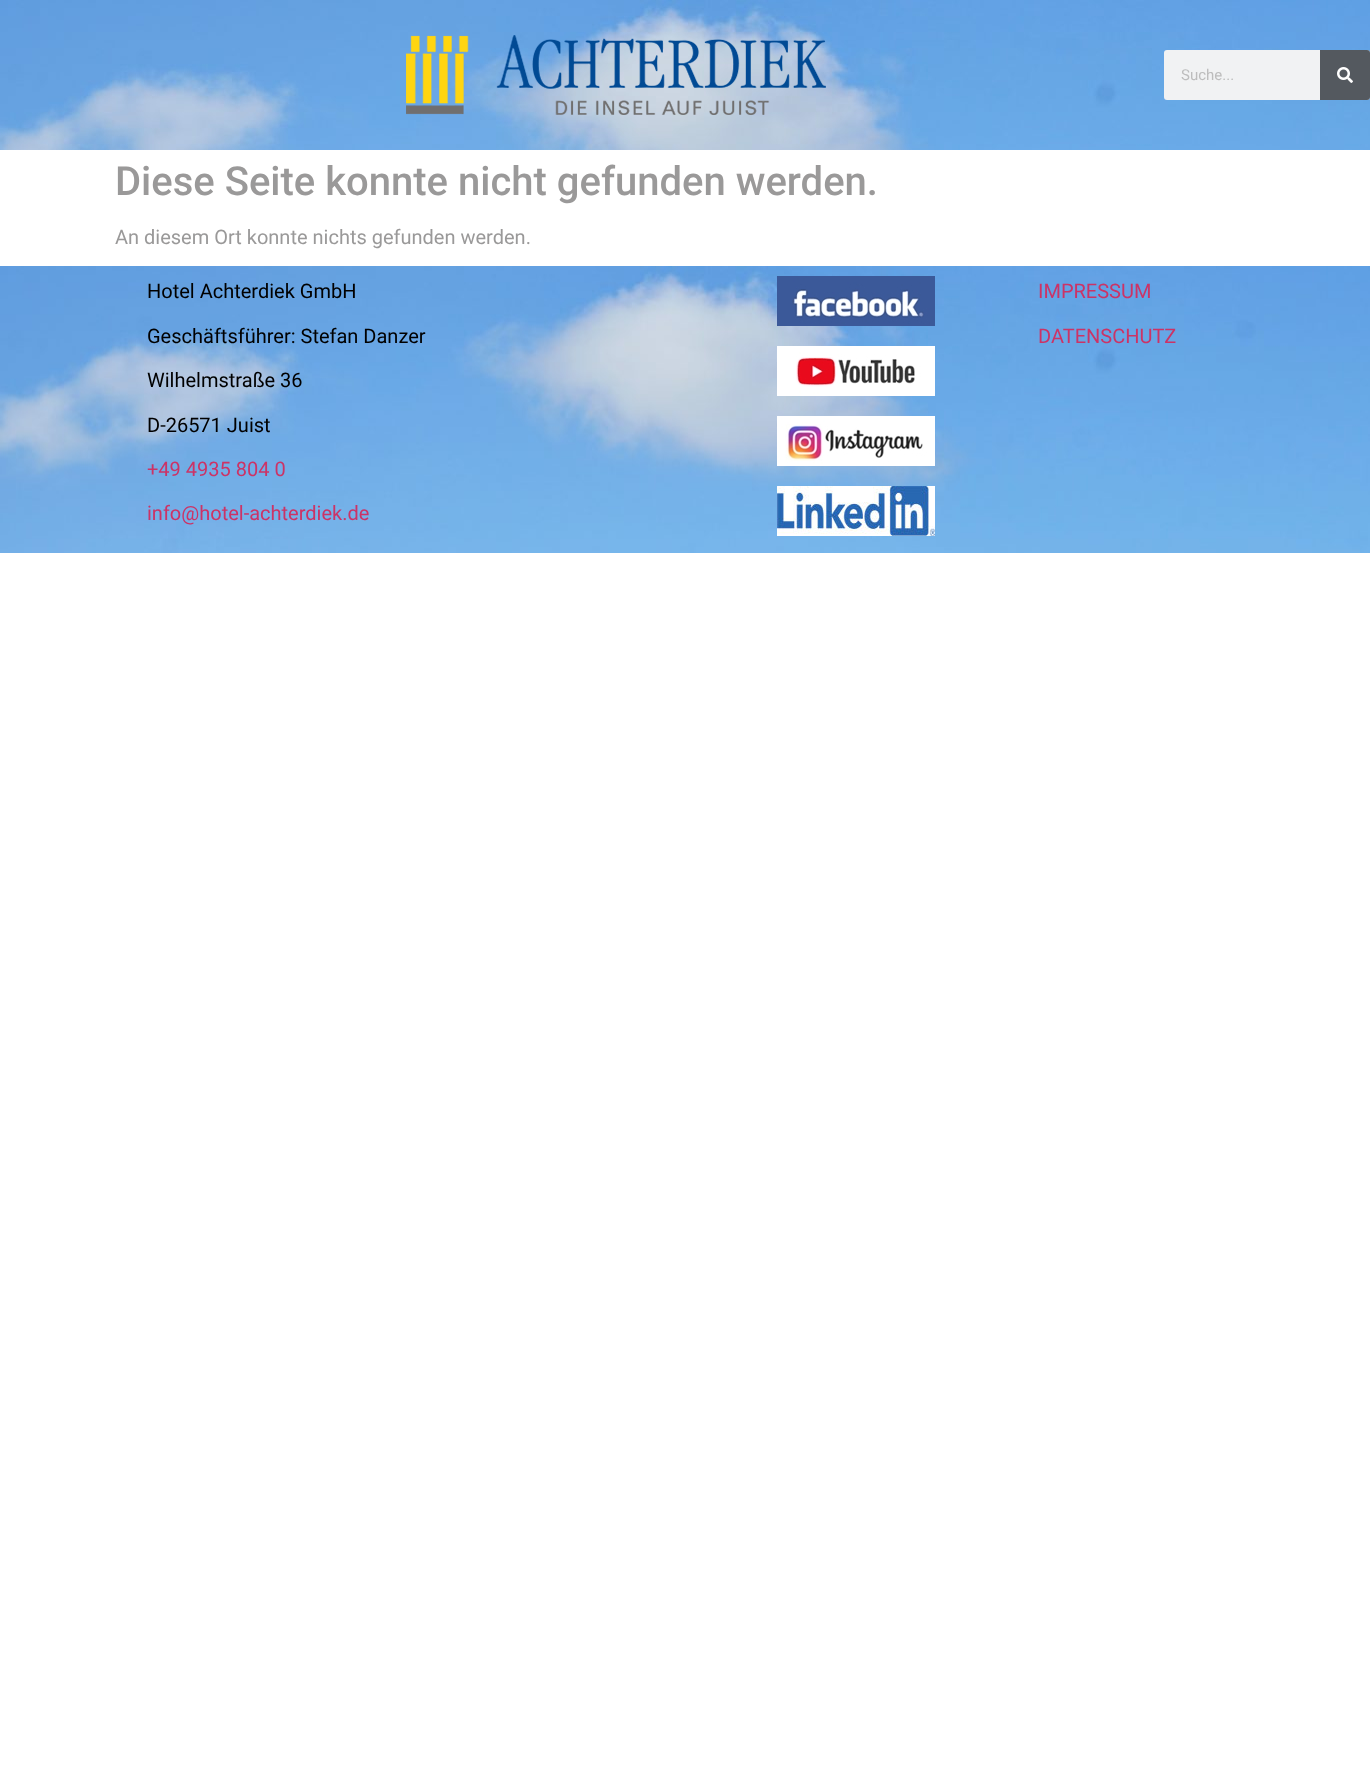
(async () => {
  const canvas = document.querySelector("canvas");
  canvas.width = 1370;
  canvas.height = 1766;
  const ctx = canvas.getContext("2d");
  ctx.miterLimit = 4;
  ctx.fontKerning = "normal";
  async function loadImage(src) {
    const img = new Image();
    img.src = src;
    await img.decode();
    return img;
  }

  ctx.fillStyle = "#ffffff";
  ctx.fillRect(0, 0, 1370, 1766);
  ctx.drawImage(await loadImage("img/1.png"), 0, 0, 1370, 150);
  ctx.drawImage(await loadImage("img/2.png"), 406, 35, 420, 80);
  ctx.fillStyle = "#f1f2f3";
  ctx.beginPath();
  ctx.roundRect(1164, 50, 206, 50, 3);
  ctx.fill();
  ctx.fillStyle = "#54595f";
  ctx.beginPath();
  ctx.roundRect(1320, 50, 50, 50, [0, 3, 3, 0]);
  ctx.fill();
  ctx.drawImage(await loadImage("img/3.png"), 1337, 67, 16, 16);
  ctx.drawImage(await loadImage("img/4.png"), 0, 266, 1370, 287);
  ctx.drawImage(await loadImage("img/5.png"), 777, 276, 158, 50);
  ctx.drawImage(await loadImage("img/6.png"), 777, 346, 158, 50);
  ctx.drawImage(await loadImage("img/7.png"), 777, 416, 158, 50);
  ctx.drawImage(await loadImage("img/8.png"), 777, 486, 158, 50);
  ctx.font = "15px Roboto";
  ctx.fillStyle = "#bdbdbd";
  ctx.fillText("Suche...", 1181, 80);
  ctx.font = "500 40px Roboto";
  ctx.fillStyle = "#9a9999";
  ctx.fillText("Diese Seite konnte nicht gefunden werden.", 115, 195);
  ctx.font = "20px Roboto";
  ctx.fillText("An diesem Ort konnte nichts gefunden werden.", 115, 244);
  ctx.fillStyle = "#000000";
  for (const [text, x, y] of [
    ["Hotel Achterdiek GmbH", 147, 298],
    ["Geschäftsführer: Stefan Danzer", 147, 343],
    ["Wilhelmstraße 36", 147, 387],
    ["D-26571 Juist", 147, 432],
  ]) {
    ctx.fillText(text, x, y);
  }
  ctx.fillStyle = "#cc3366";
  for (const [text, x, y] of [
    ["+49 4935 804 0", 147, 476],
    ["info@hotel-achterdiek.de", 147, 520],
    ["IMPRESSUM", 1038, 298],
    ["DATENSCHUTZ", 1038, 343],
  ]) {
    ctx.fillText(text, x, y);
  }
})();
